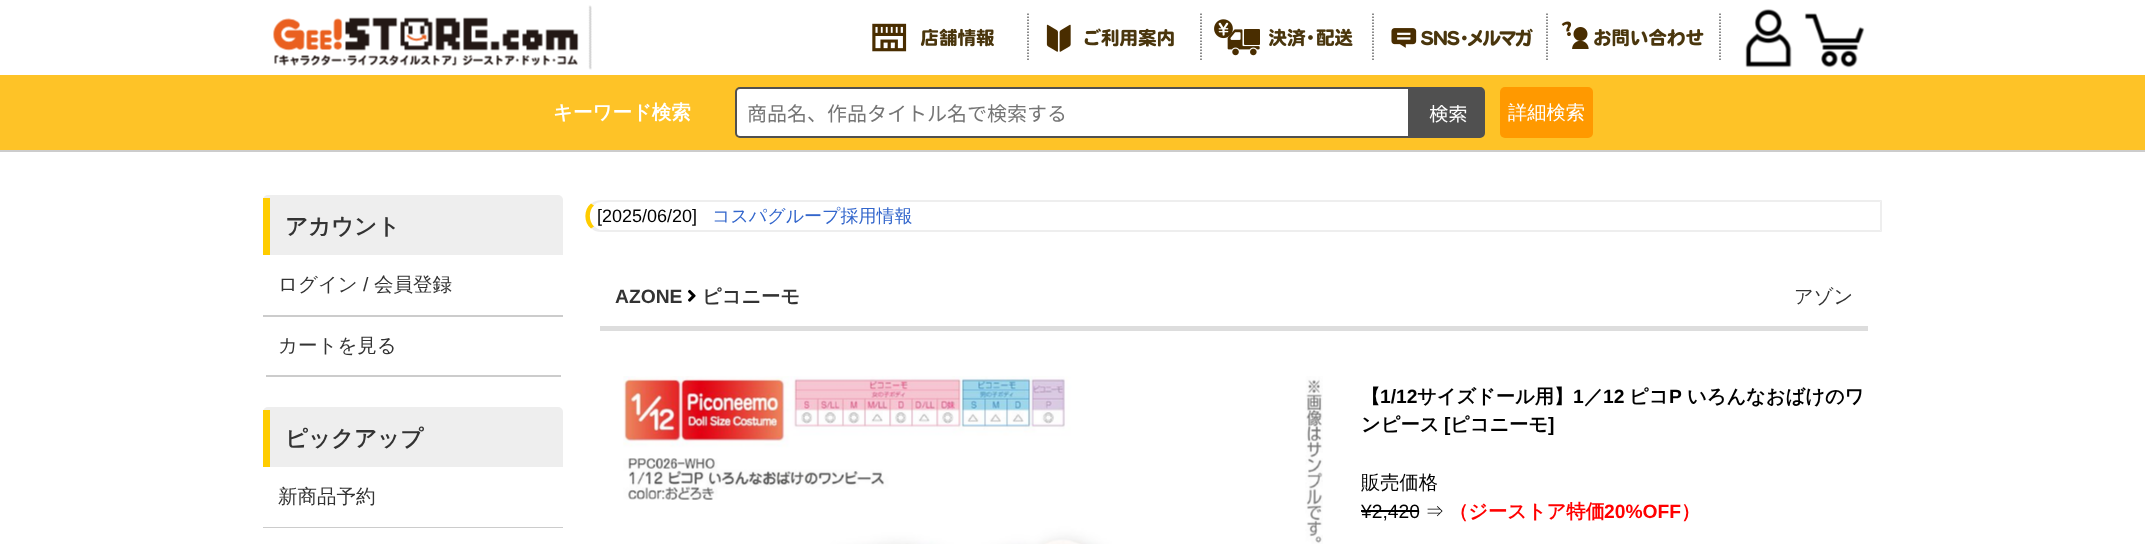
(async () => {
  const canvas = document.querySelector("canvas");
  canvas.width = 2145;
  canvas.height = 544;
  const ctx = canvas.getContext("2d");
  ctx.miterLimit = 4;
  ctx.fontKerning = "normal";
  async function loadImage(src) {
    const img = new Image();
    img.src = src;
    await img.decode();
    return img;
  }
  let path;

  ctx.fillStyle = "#ffffff";
  ctx.fillRect(0, 0, 2145, 544);
  ctx.fillStyle = "#cccccc";
  ctx.fillRect(0, 150, 2145, 2);
  ctx.drawImage(await loadImage("img/1.png"), 273, 5, 319, 65);
  path = new Path2D("M1028 13.5V61.5");
  ctx.strokeStyle = "#666666";
  ctx.lineWidth = 1.5;
  ctx.setLineDash([1.5, 1.5]);
  ctx.stroke(path);
  ctx.drawImage(await loadImage("img/2.png"), 872, 23, 122, 29);
  path = new Path2D("M1201 13.5V61.5");
  ctx.stroke(path);
  ctx.drawImage(await loadImage("img/3.png"), 1046, 24, 128, 28);
  path = new Path2D("M1373 13.5V61.5");
  ctx.stroke(path);
  ctx.drawImage(await loadImage("img/4.png"), 1214, 19, 139, 37);
  path = new Path2D("M1547 13.5V61.5");
  ctx.stroke(path);
  ctx.drawImage(await loadImage("img/5.png"), 1391, 28, 142, 20);
  path = new Path2D("M1720 13.5V61.5");
  ctx.stroke(path);
  ctx.drawImage(await loadImage("img/6.png"), 1561, 21, 143, 28);
  ctx.drawImage(await loadImage("img/7.png"), 1745, 9, 47, 59);
  ctx.drawImage(await loadImage("img/8.png"), 1804, 13, 61, 55);
  ctx.fillStyle = "#fec327";
  ctx.fillRect(0, 75, 2145, 75);
  ctx.fillStyle = "#ffffff";
  ctx.beginPath();
  ctx.roundRect(736, 88, 673, 49, [4, 0, 0, 4]);
  ctx.fill();
  ctx.strokeStyle = "#505050";
  ctx.lineWidth = 2;
  ctx.setLineDash([]);
  ctx.stroke();
  ctx.fillStyle = "#505050";
  ctx.beginPath();
  ctx.roundRect(1411, 88, 73, 49, [0, 4, 4, 0]);
  ctx.fill();
  ctx.stroke();
  ctx.fillStyle = "#ff9900";
  ctx.beginPath();
  ctx.roundRect(1500, 87, 93, 51, 5);
  ctx.fill();
  ctx.fillStyle = "#eeeeee";
  ctx.beginPath();
  ctx.roundRect(263, 195, 300, 60, [5, 5, 0, 0]);
  ctx.fill();
  for (const [x, y, w, h, color] of [
    [263, 198, 7, 57, "#ffcc00"],
    [263, 315, 300, 2, "#cccccc"],
    [266, 375, 295, 2, "#cccccc"],
  ]) {
    ctx.fillStyle = color;
    ctx.fillRect(x, y, w, h);
  }
  ctx.fillStyle = "#eeeeee";
  ctx.beginPath();
  ctx.roundRect(263, 407, 300, 60, [5, 5, 0, 0]);
  ctx.fill();
  ctx.fillStyle = "#ffcc00";
  ctx.fillRect(263, 410, 7, 57);
  ctx.fillStyle = "#cccccc";
  ctx.fillRect(263, 527, 300, 1);
  ctx.fillStyle = "#eeeeee";
  path = new Path2D("M602 200C597 200 594 201 591 204L594 205C596 203 598 202 602 202H1880L1882 200Z");
  ctx.fill(path);
  path = new Path2D("M1882 232V200L1880 202V230Z");
  ctx.fill(path);
  path = new Path2D("M1882 232L1880 230H602C599 230 596 228 594 226L591 228C594 231 597 232 602 232Z");
  ctx.fill(path);
  ctx.fillStyle = "#ffcc00";
  path = new Path2D("M591 203.5C583.5 209.5 583.5 222.5 591 228.5L594 226.5C588.5 221 588.5 210.5 594 205.5Z");
  ctx.fill(path);
  ctx.fillStyle = "#dddddd";
  ctx.fillRect(600, 326, 1268, 5);
  ctx.drawImage(await loadImage("img/9.png"), 688, 289, 8, 13);
  ctx.drawImage(await loadImage("img/10.png"), 623, 376, 700, 168);
  ctx.fillStyle = "#000000";
  ctx.fillRect(1361, 510, 58, 2);
  ctx.font = "bold 19.5px WenQuanYi Zen Hei";
  ctx.fillStyle = "#ffffff";
  ctx.fillText("キーワード検索", 553, 119);
  ctx.font = "20px Noto Sans JP";
  ctx.fillStyle = "#757575";
  ctx.fillText("商品名、作品タイトル名で検索する", 747, 121);
  ctx.font = "19.25px Noto Sans JP";
  ctx.fillStyle = "#ffffff";
  ctx.fillText("検索", 1429, 121);
  ctx.font = "500 19.25px WenQuanYi Zen Hei";
  ctx.fillText("詳細検索", 1508, 119);
  ctx.font = "bold 22.5px WenQuanYi Zen Hei";
  ctx.fillStyle = "#333333";
  ctx.fillText("アカウント", 285, 234);
  ctx.font = "500 19.5px WenQuanYi Zen Hei";
  ctx.fillText("ログイン", 278, 291);
  ctx.font = "19.5px Liberation Sans";
  ctx.fillText("/", 363, 291);
  ctx.font = "500 19.5px WenQuanYi Zen Hei";
  ctx.fillText("会員登録", 374, 291);
  ctx.fillText("カートを見る", 278, 352);
  ctx.font = "bold 22.5px WenQuanYi Zen Hei";
  ctx.fillText("ピックアップ", 285, 446);
  ctx.font = "500 19.5px WenQuanYi Zen Hei";
  ctx.fillText("新商品予約", 278, 503);
  ctx.font = "18px Liberation Sans";
  ctx.fillStyle = "#000000";
  ctx.fillText("[2025/06/20]", 597, 222);
  ctx.font = "500 18px WenQuanYi Zen Hei";
  ctx.fillStyle = "#3366cc";
  ctx.fillText("コスパグループ採用情報", 712, 222);
  ctx.font = "bold 19.25px Liberation Sans";
  ctx.fillStyle = "#333333";
  ctx.fillText("AZONE", 615, 303);
  ctx.font = "bold 19.25px WenQuanYi Zen Hei";
  ctx.fillText("ピコニーモ", 702, 303);
  ctx.font = "500 19.25px WenQuanYi Zen Hei";
  ctx.fillText("アゾン", 1794, 303);
  ctx.font = "bold 19.25px WenQuanYi Zen Hei";
  ctx.fillStyle = "#000000";
  ctx.fillText("【", 1361, 403);
  ctx.font = "bold 19.25px Liberation Sans";
  ctx.fillText("1/12", 1380, 403);
  ctx.font = "bold 19.25px WenQuanYi Zen Hei";
  ctx.fillText("サイズドール用】", 1417, 403);
  ctx.font = "bold 19.25px Liberation Sans";
  ctx.fillText("1", 1573, 403);
  ctx.font = "bold 19.25px WenQuanYi Zen Hei";
  ctx.fillText("／", 1584, 403);
  ctx.font = "bold 19.25px Liberation Sans";
  ctx.fillText("12", 1603, 403);
  ctx.font = "bold 19.25px WenQuanYi Zen Hei";
  ctx.fillText("ピコ", 1629, 403);
  ctx.font = "bold 19.25px Liberation Sans";
  ctx.fillText("P", 1669, 403);
  ctx.font = "bold 19.25px WenQuanYi Zen Hei";
  ctx.fillText("いろんなおばけのワ", 1687, 403);
  ctx.fillText("ンピース", 1361, 431);
  ctx.font = "bold 19.25px Liberation Sans";
  ctx.fillText("[", 1444, 431);
  ctx.font = "bold 19.25px WenQuanYi Zen Hei";
  ctx.fillText("ピコニーモ", 1450, 431);
  ctx.font = "bold 19.25px Liberation Sans";
  ctx.fillText("]", 1548, 431);
  ctx.font = "500 19.25px WenQuanYi Zen Hei";
  ctx.fillText("販売価格", 1361, 489);
  ctx.font = "19.25px Liberation Sans";
  ctx.fillText("¥2,420", 1361, 518);
  ctx.font = "500 19.25px WenQuanYi Zen Hei";
  ctx.fillText("⇒", 1425, 518);
  ctx.font = "bold 19.25px WenQuanYi Zen Hei";
  ctx.fillStyle = "#ff0000";
  ctx.fillText("（ジーストア特価", 1449, 518);
  ctx.font = "bold 19.25px Liberation Sans";
  ctx.fillText("20%OFF", 1604, 518);
  ctx.font = "bold 19.25px WenQuanYi Zen Hei";
  ctx.fillText("）", 1681, 518);
})();
